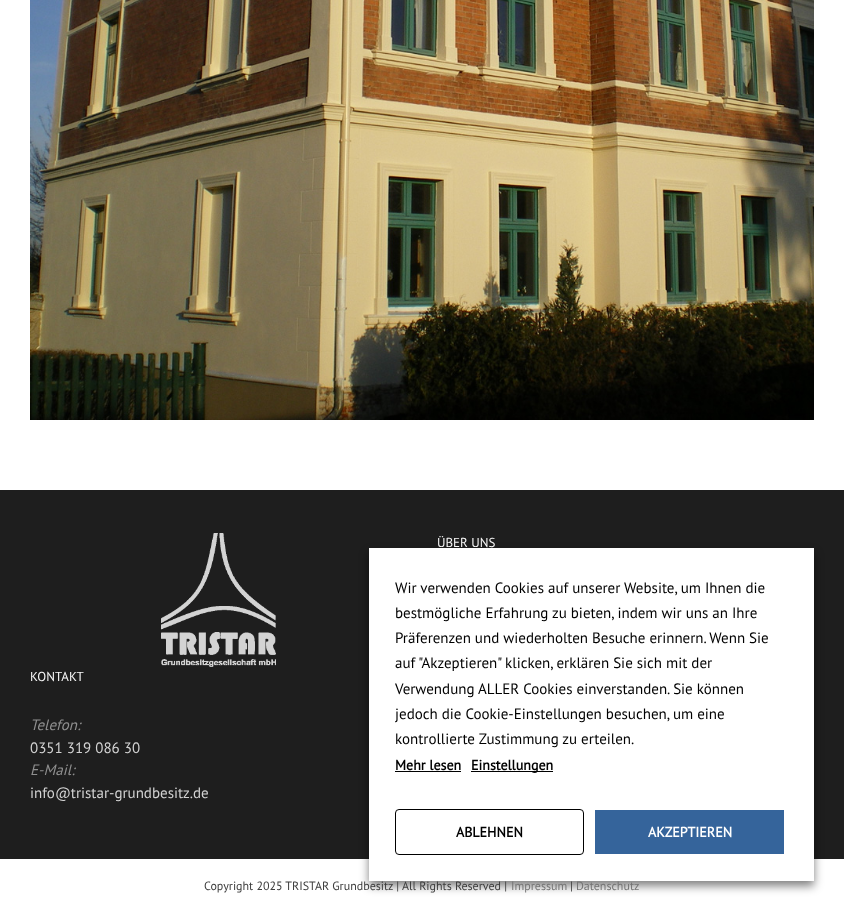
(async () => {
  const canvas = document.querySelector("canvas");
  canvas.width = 844;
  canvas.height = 911;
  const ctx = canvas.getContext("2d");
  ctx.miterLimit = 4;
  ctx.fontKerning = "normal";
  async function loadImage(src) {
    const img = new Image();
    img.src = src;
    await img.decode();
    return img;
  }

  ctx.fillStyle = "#ffffff";
  ctx.fillRect(0, 0, 844, 911);
  ctx.drawImage(await loadImage("img/1.png"), 30, 0, 784, 420);
  ctx.fillStyle = "#1e1e1e";
  ctx.fillRect(0, 490, 844, 369);
  ctx.drawImage(await loadImage("img/2.png"), 161, 533, 115, 134);
  ctx.fillStyle = "rgba(0, 0, 0, 0.5)";
  ctx.filter = "blur(5px)";
  ctx.beginPath();
  ctx.rect(369, 553, 445, 333);
  ctx.fill();
  ctx.filter = "none";
  for (const [x, y, w, h, color] of [
    [369, 548, 445, 333, "#ffffff"],
    [395, 771, 66, 1, "#000000"],
    [471, 771, 82, 1, "#000000"],
  ]) {
    ctx.fillStyle = color;
    ctx.fillRect(x, y, w, h);
  }
  ctx.beginPath();
  ctx.roundRect(395.5, 809.5, 188, 45, 3.5);
  ctx.strokeStyle = "#000000";
  ctx.stroke();
  ctx.fillStyle = "#35649b";
  ctx.fillRect(595, 810, 189, 44);
  ctx.font = "13px PT Sans";
  ctx.fillStyle = "#f7f7f7";
  ctx.fillText("ÜBER UNS", 437, 547);
  ctx.fillText("KONTAKT", 30, 681);
  ctx.font = "italic 15px PT Sans";
  ctx.fillStyle = "#8f8f8f";
  ctx.fillText("Telefon:", 30, 730);
  ctx.font = "15px PT Sans";
  ctx.fillStyle = "#d3d3d3";
  ctx.fillText("0351 319 086 30", 30, 753);
  ctx.font = "italic 15px PT Sans";
  ctx.fillStyle = "#8f8f8f";
  ctx.fillText("E-Mail:", 30, 775);
  ctx.font = "15px PT Sans";
  ctx.fillStyle = "#d3d3d3";
  ctx.fillText("info@tristar-grundbesitz.de", 30, 798);
  ctx.font = "12px PT Sans";
  ctx.fillStyle = "#3d3d3d";
  ctx.fillText("Copyright 2025 TRISTAR Grundbesitz | All Rights Reserved |", 204, 890);
  ctx.fillStyle = "#747474";
  ctx.fillText("Impressum", 511, 890);
  ctx.fillStyle = "#3d3d3d";
  ctx.fillText("|", 570, 890);
  ctx.fillStyle = "#747474";
  ctx.fillText("Datenschutz", 576, 890);
  ctx.font = "15px PT Sans";
  ctx.fillStyle = "#000000";
  for (const [text, x, y] of [
    ["Wir verwenden Cookies auf unserer Website, um Ihnen die", 395, 593],
    ["bestmögliche Erfahrung zu bieten, indem wir uns an Ihre", 395, 618],
    ["Präferenzen und wiederholten Besuche erinnern. Wenn Sie", 395, 643],
    ["auf \"Akzeptieren\" klicken, erklären Sie sich mit der", 395, 668],
    ["Verwendung ALLER Cookies einverstanden. Sie können", 395, 694],
    ["jedoch die Cookie-Einstellungen besuchen, um eine", 395, 719],
    ["kontrollierte Zustimmung zu erteilen.", 395, 744],
  ]) {
    ctx.fillText(text, x, y);
  }
  ctx.font = "bold 14px PT Sans";
  for (const [text, x, y] of [
    ["Mehr lesen", 395, 770],
    ["Einstellungen", 471, 770],
    ["ABLEHNEN", 456, 837],
  ]) {
    ctx.fillText(text, x, y);
  }
  ctx.fillStyle = "#ffffff";
  ctx.fillText("AKZEPTIEREN", 648, 837);
})();
